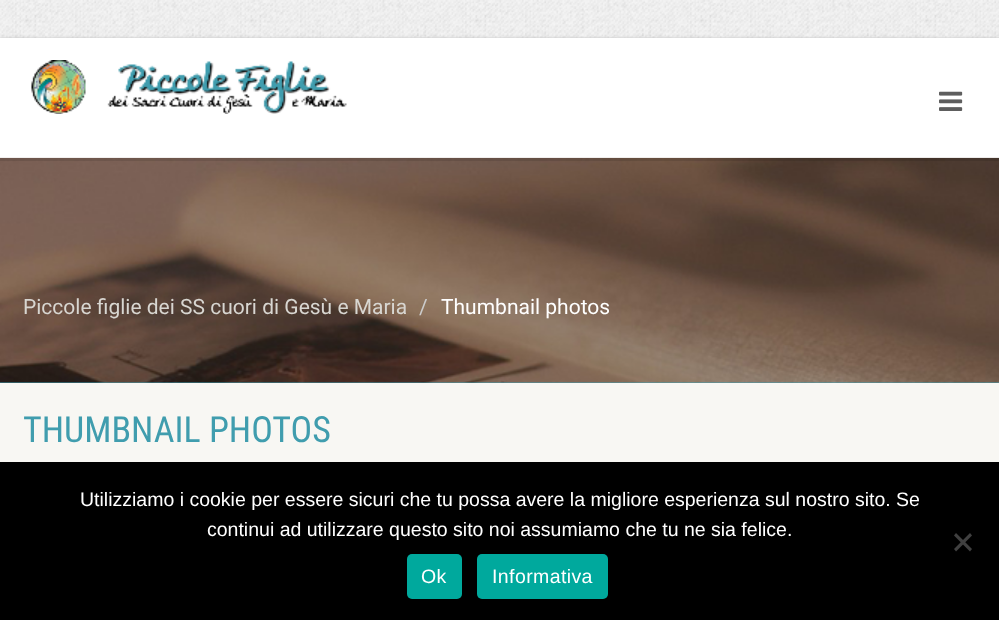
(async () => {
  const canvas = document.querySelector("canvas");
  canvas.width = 999;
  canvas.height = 620;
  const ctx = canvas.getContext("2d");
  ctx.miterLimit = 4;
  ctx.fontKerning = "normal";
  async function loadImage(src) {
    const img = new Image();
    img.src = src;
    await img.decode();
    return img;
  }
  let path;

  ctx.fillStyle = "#ffffff";
  ctx.fillRect(0, 0, 999, 620);
  ctx.drawImage(await loadImage("img/1.png"), 0, 0, 999, 38);
  ctx.fillStyle = "rgba(0, 0, 0, 0.2)";
  ctx.filter = "blur(1.5px)";
  ctx.beginPath();
  ctx.rect(0, 38, 999, 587);
  ctx.fill();
  ctx.filter = "none";
  ctx.fillStyle = "#ffffff";
  ctx.fillRect(0, 38, 999, 120);
  ctx.fillStyle = "#409dae";
  ctx.fillRect(0, 382, 999, 1);
  ctx.drawImage(await loadImage("img/4.png"), 0, 157, 999, 226);
  ctx.fillStyle = "rgba(0, 0, 0, 0.1)";
  ctx.fillRect(0, 158, 999, 3);
  ctx.fillStyle = "rgba(255, 255, 255, 0.8)";
  ctx.fillRect(0, 157, 999, 1);
  ctx.drawImage(await loadImage("img/2.png"), 31, 60, 316, 54);
  ctx.drawImage(await loadImage("img/3.png"), 939, 91, 24, 20);
  ctx.fillStyle = "#f8f7f3";
  ctx.fillRect(0, 383, 999, 79);
  ctx.fillStyle = "#000000";
  ctx.fillRect(0, 462, 999, 158);
  ctx.fillStyle = "#404040";
  path = new Path2D("M970 533L972 535.5L956 551.5L954 549Z");
  ctx.fill(path);
  path = new Path2D("M954 535.5L956 533L972 549L970 551.5Z");
  ctx.fill(path);
  ctx.fillStyle = "#00a99d";
  ctx.beginPath();
  ctx.roundRect(407, 554, 55, 45, 5);
  ctx.fill();
  ctx.beginPath();
  ctx.roundRect(477, 554, 131, 45, 5);
  ctx.fill();
  ctx.font = "21px Roboto";
  ctx.fillStyle = "#d8d6d1";
  ctx.fillText("Piccole figlie dei SS cuori di Gesù e Maria", 23, 314);
  ctx.fillStyle = "#cccccc";
  ctx.fillText("/", 419, 314);
  ctx.fillStyle = "#ffffff";
  ctx.fillText("Thumbnail photos", 441, 314);
  ctx.font = "36px Roboto Condensed";
  ctx.fillStyle = "#409dae";
  ctx.fillText("THUMBNAIL PHOTOS", 23, 442);
  ctx.font = "19.5px Liberation Sans";
  ctx.fillStyle = "#ffffff";
  ctx.fillText("Utilizziamo i cookie per essere sicuri che tu possa avere la migliore esperienza sul nostro sito. Se", 80, 506);
  ctx.fillText("continui ad utilizzare questo sito noi assumiamo che tu ne sia felice.", 207, 536);
  ctx.letterSpacing = "0.4px";
  ctx.fillText("Ok", 421, 583);
  ctx.fillText("Informativa", 492, 583);
})();
